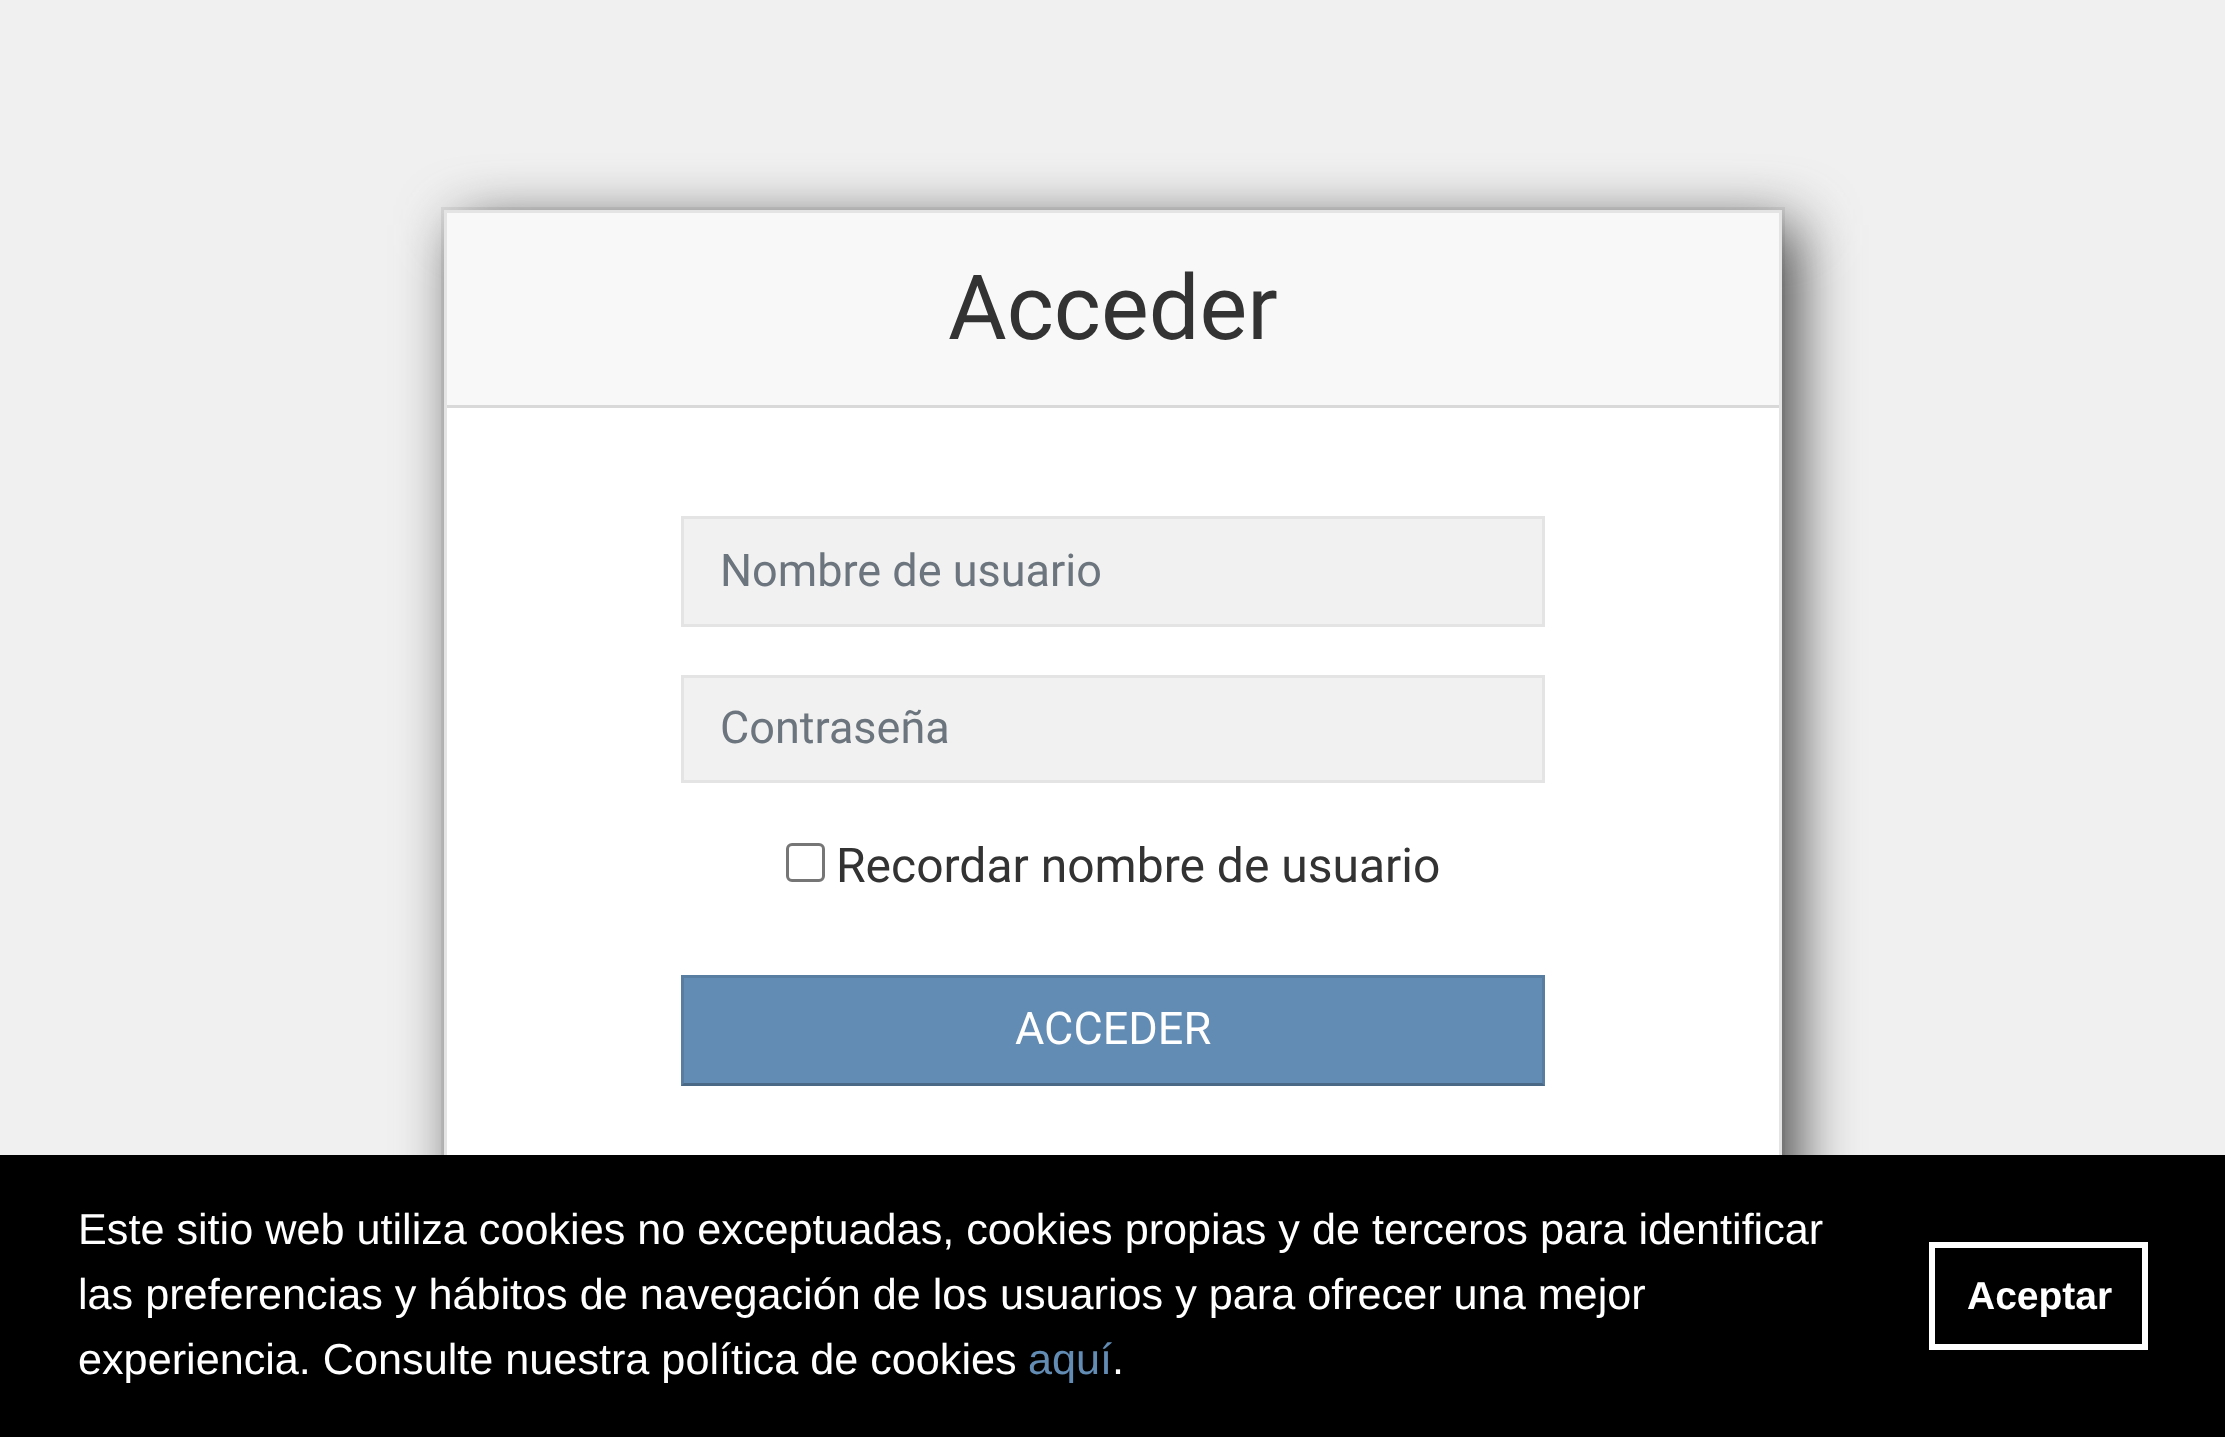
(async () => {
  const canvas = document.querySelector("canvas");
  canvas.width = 2225;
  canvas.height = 1437;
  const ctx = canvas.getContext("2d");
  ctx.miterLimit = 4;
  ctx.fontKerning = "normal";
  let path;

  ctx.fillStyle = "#f0f0f0";
  ctx.fillRect(0, 0, 2225, 1437);
  ctx.fillStyle = "#ffffff";
  ctx.fillRect(447, 408, 1332, 747);
  ctx.strokeStyle = "#dfdfdf";
  ctx.lineWidth = 3;
  ctx.strokeRect(442.5, 208.5, 1341, 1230);
  ctx.save();
  path = new Path2D("M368 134H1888V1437H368ZM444 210H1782V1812H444Z");
  ctx.clip(path, "evenodd");
  ctx.fillStyle = "#444444";
  ctx.filter = "blur(30px)";
  ctx.beginPath();
  ctx.rect(459, 225, 1338, 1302);
  ctx.fill();
  ctx.filter = "none";
  ctx.restore();
  ctx.strokeStyle = "#e4e4e4";
  ctx.strokeRect(445.5, 211.5, 1335, 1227);
  ctx.fillStyle = "#f8f8f8";
  ctx.fillRect(447, 213, 1332, 192);
  ctx.fillStyle = "#d9d9d9";
  ctx.fillRect(447, 405, 1332, 3);
  ctx.fillStyle = "#f1f1f1";
  ctx.beginPath();
  ctx.rect(682.5, 517.5, 861, 108);
  ctx.fill();
  ctx.stroke();
  ctx.beginPath();
  ctx.rect(682.5, 676.5, 861, 105);
  ctx.fill();
  ctx.stroke();
  ctx.beginPath();
  ctx.roundRect(787.5, 844.5, 36, 36, 4.5);
  ctx.strokeStyle = "#767676";
  ctx.stroke();
  ctx.fillStyle = "#628cb3";
  ctx.fillRect(681, 975, 864, 111);
  ctx.fillStyle = "#587ea1";
  path = new Path2D("M681 975H1545L1542 978H684Z");
  ctx.fill(path);
  ctx.fillStyle = "rgba(0, 0, 0, 0.1)";
  path = new Path2D("M1545 975V1086L1542 1083V978Z");
  ctx.fill(path);
  ctx.fillStyle = "rgba(0, 0, 0, 0.25)";
  path = new Path2D("M1545 1086H681L684 1083H1542Z");
  ctx.fill(path);
  ctx.fillStyle = "rgba(0, 0, 0, 0.1)";
  path = new Path2D("M681 1086V975L684 978V1083Z");
  ctx.fill(path);
  ctx.fillStyle = "#000000";
  ctx.fillRect(0, 1155, 2225, 282);
  ctx.strokeStyle = "#ffffff";
  ctx.lineWidth = 6;
  ctx.strokeRect(1932, 1245, 213, 102);
  ctx.font = "90px Roboto";
  ctx.fillStyle = "#333333";
  ctx.fillText("Acceder", 948, 339);
  ctx.font = "45px Roboto";
  ctx.fillStyle = "#6c757d";
  ctx.fillText("Nombre de usuario", 720, 586);
  ctx.fillText("Contraseña", 720, 743);
  ctx.font = "48px Roboto";
  ctx.fillStyle = "#333333";
  ctx.fillText("Recordar nombre de usuario", 836, 882);
  ctx.font = "45px Roboto";
  ctx.fillStyle = "#ffffff";
  ctx.fillText("ACCEDER", 1015, 1044);
  ctx.font = "43.2px Liberation Sans";
  for (const [text, x, y] of [
    ["Este sitio web utiliza cookies no exceptuadas, cookies propias y de terceros para identificar", 78, 1244],
    ["las preferencias y hábitos de navegación de los usuarios y para ofrecer una mejor", 78, 1309],
    ["experiencia. Consulte nuestra política de cookies", 78, 1374],
  ]) {
    ctx.fillText(text, x, y);
  }
  ctx.fillStyle = "#628cb3";
  ctx.fillText("aquí", 1028, 1374);
  ctx.fillStyle = "#ffffff";
  ctx.fillText(".", 1112, 1374);
  ctx.font = "bold 39px Liberation Sans";
  ctx.fillText("Aceptar", 1967, 1309);
})();
